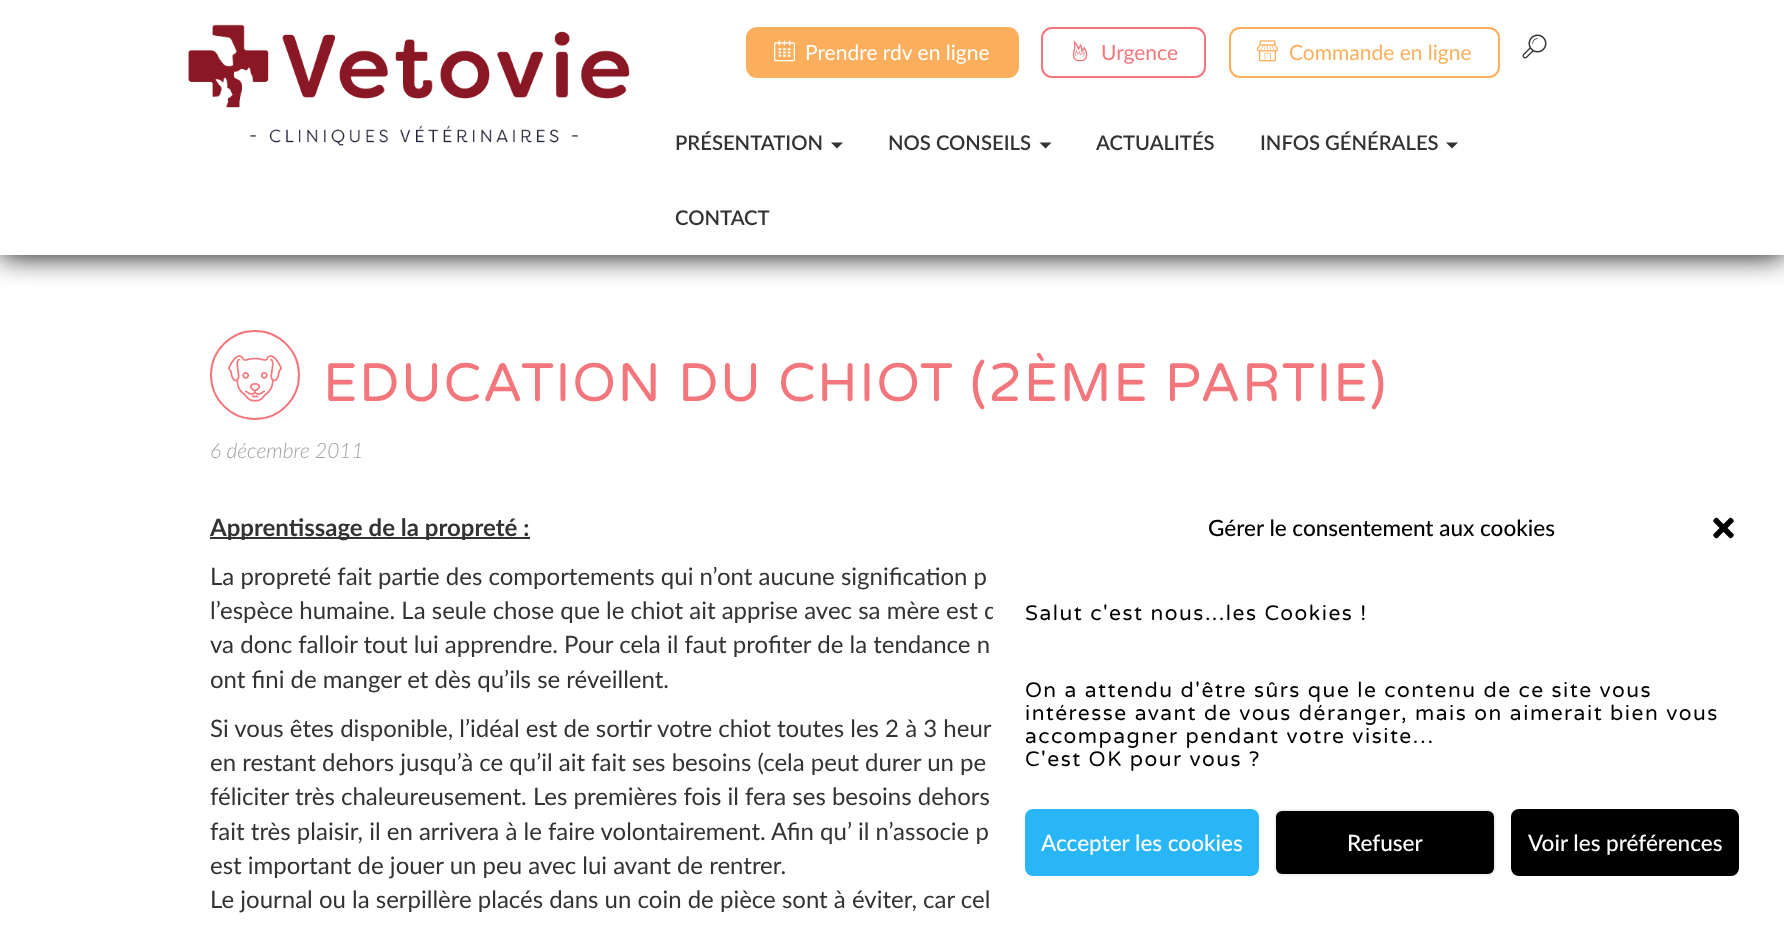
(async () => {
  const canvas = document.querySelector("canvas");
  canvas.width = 1784;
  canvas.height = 929;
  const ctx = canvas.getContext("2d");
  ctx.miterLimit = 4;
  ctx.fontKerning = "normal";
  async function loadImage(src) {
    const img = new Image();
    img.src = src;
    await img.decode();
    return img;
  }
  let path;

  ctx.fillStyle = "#ffffff";
  ctx.fillRect(0, 0, 1784, 929);
  ctx.save();
  ctx.beginPath();
  ctx.rect(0, 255, 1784, 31);
  ctx.clip();
  ctx.fillStyle = "#000000";
  ctx.filter = "blur(15px)";
  ctx.beginPath();
  ctx.rect(0, 0, 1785, 255);
  ctx.fill();
  ctx.filter = "none";
  ctx.restore();
  ctx.drawImage(await loadImage("img/1.png"), 188, 24, 442, 122);
  ctx.fillStyle = "#fbaf5d";
  ctx.beginPath();
  ctx.roundRect(747, 28, 271, 49, 10);
  ctx.fill();
  ctx.strokeStyle = "#fbaf5d";
  ctx.lineWidth = 2;
  ctx.stroke();
  ctx.drawImage(await loadImage("img/2.png"), 774, 40, 21, 22);
  ctx.beginPath();
  ctx.roundRect(1042, 28, 163, 49, 10);
  ctx.strokeStyle = "#f3767c";
  ctx.stroke();
  ctx.drawImage(await loadImage("img/3.png"), 1072, 40, 16, 22);
  ctx.beginPath();
  ctx.roundRect(1230, 28, 269, 49, 10);
  ctx.strokeStyle = "#fbaf5d";
  ctx.stroke();
  ctx.drawImage(await loadImage("img/4.png"), 1257, 40, 21, 22);
  ctx.drawImage(await loadImage("img/5.png"), 1522, 34, 25, 25);
  ctx.fillStyle = "#333333";
  path = new Path2D("M831 142.5H843L837 148.5Z");
  ctx.fill(path);
  path = new Path2D("M1039.5 142.5H1051.5L1045.5 148.5Z");
  ctx.fill(path);
  path = new Path2D("M1446 142.5H1458L1452 148.5Z");
  ctx.fill(path);
  ctx.beginPath();
  ctx.arc(255, 375, 44, 0, Math.PI * 2);
  ctx.strokeStyle = "#f3767c";
  ctx.stroke();
  ctx.drawImage(await loadImage("img/6.png"), 228, 355, 54, 47);
  ctx.fillRect(210, 537, 320, 2);
  ctx.drawImage(await loadImage("img/7.png"), 1713, 517, 21, 22);
  ctx.fillStyle = "#29b6f6";
  ctx.beginPath();
  ctx.roundRect(1026, 810, 232, 65, 7);
  ctx.fill();
  ctx.strokeStyle = "#29b6f6";
  ctx.stroke();
  ctx.fillStyle = "#000000";
  ctx.beginPath();
  ctx.roundRect(1275, 810, 220, 65, 7);
  ctx.fill();
  ctx.strokeStyle = "#f1f1f1";
  ctx.stroke();
  ctx.beginPath();
  ctx.roundRect(1512, 810, 226, 65, 7);
  ctx.fill();
  ctx.strokeStyle = "#000000";
  ctx.stroke();
  ctx.font = "21px Lato";
  ctx.fillStyle = "#ffffff";
  ctx.fillText("Prendre rdv en ligne", 805, 60);
  ctx.fillStyle = "#f3767c";
  ctx.fillText("Urgence", 1101, 60);
  ctx.fillStyle = "#fbaf5d";
  ctx.fillText("Commande en ligne", 1289, 60);
  ctx.font = "600 20.25px Lato";
  ctx.fillStyle = "#333333";
  for (const [text, x, y] of [
    ["PRÉSENTATION", 675, 150],
    ["NOS CONSEILS", 888, 150],
    ["ACTUALITÉS", 1096, 150],
    ["INFOS GÉNÉRALES", 1260, 150],
    ["CONTACT", 675, 225],
  ]) {
    ctx.fillText(text, x, y);
  }
  ctx.letterSpacing = "1.5px";
  ctx.font = "54px Varela Round";
  ctx.fillStyle = "#f3767c";
  ctx.fillText("EDUCATION DU CHIOT (2ÈME PARTIE)", 323, 401);
  ctx.letterSpacing = "0px";
  ctx.font = "italic 300 21px Lato";
  ctx.fillStyle = "#a1a1a1";
  ctx.fillText("6 décembre 2011", 210, 458);
  ctx.font = "bold 24px Lato";
  ctx.fillStyle = "#333333";
  ctx.fillText("Apprentissage de la propreté :", 210, 536);
  ctx.font = "24px Lato";
  for (const [text, x, y] of [
    ["La propreté fait partie des comportements qui n’ont aucune signification p", 210, 585],
    ["l’espèce humaine. La seule chose que le chiot ait apprise avec sa mère est q", 210, 619],
    ["va donc falloir tout lui apprendre. Pour cela il faut profiter de la tendance n", 210, 653],
    ["ont fini de manger et dès qu’ils se réveillent.", 210, 688],
    ["Si vous êtes disponible, l’idéal est de sortir votre chiot toutes les 2 à 3 heur", 210, 737],
    ["en restant dehors jusqu’à ce qu’il ait fait ses besoins (cela peut durer un pe", 210, 771],
    ["féliciter très chaleureusement. Les premières fois il fera ses besoins dehors", 210, 805],
    ["fait très plaisir, il en arrivera à le faire volontairement. Afin qu’ il n’associe p", 210, 840],
    ["est important de jouer un peu avec lui avant de rentrer.", 210, 874],
    ["Le journal ou la serpillère placés dans un coin de pièce sont à éviter, car cel", 210, 908],
  ]) {
    ctx.fillText(text, x, y);
  }
  ctx.fillStyle = "#ffffff";
  ctx.fillRect(993, 606, 3, 18);
  ctx.font = "500 22.5px Lato";
  ctx.fillStyle = "#000000";
  ctx.fillText("Gérer le consentement aux cookies", 1208, 536);
  ctx.letterSpacing = "1.5px";
  ctx.font = "21px Varela Round";
  for (const [text, x, y] of [
    ["Salut c'est nous...les Cookies !", 1025, 620],
    ["On a attendu d'être sûrs que le contenu de ce site vous", 1025, 697],
    ["intéresse avant de vous déranger, mais on aimerait bien vous", 1025, 720],
    ["accompagner pendant votre visite…", 1025, 743],
    ["C'est OK pour vous ?", 1025, 766],
  ]) {
    ctx.fillText(text, x, y);
  }
  ctx.letterSpacing = "0px";
  ctx.font = "500 22.5px Lato";
  ctx.fillStyle = "#ffffff";
  for (const [text, x, y] of [
    ["Accepter les cookies", 1041, 851],
    ["Refuser", 1347, 851],
    ["Voir les préférences", 1528, 851],
  ]) {
    ctx.fillText(text, x, y);
  }
})();
